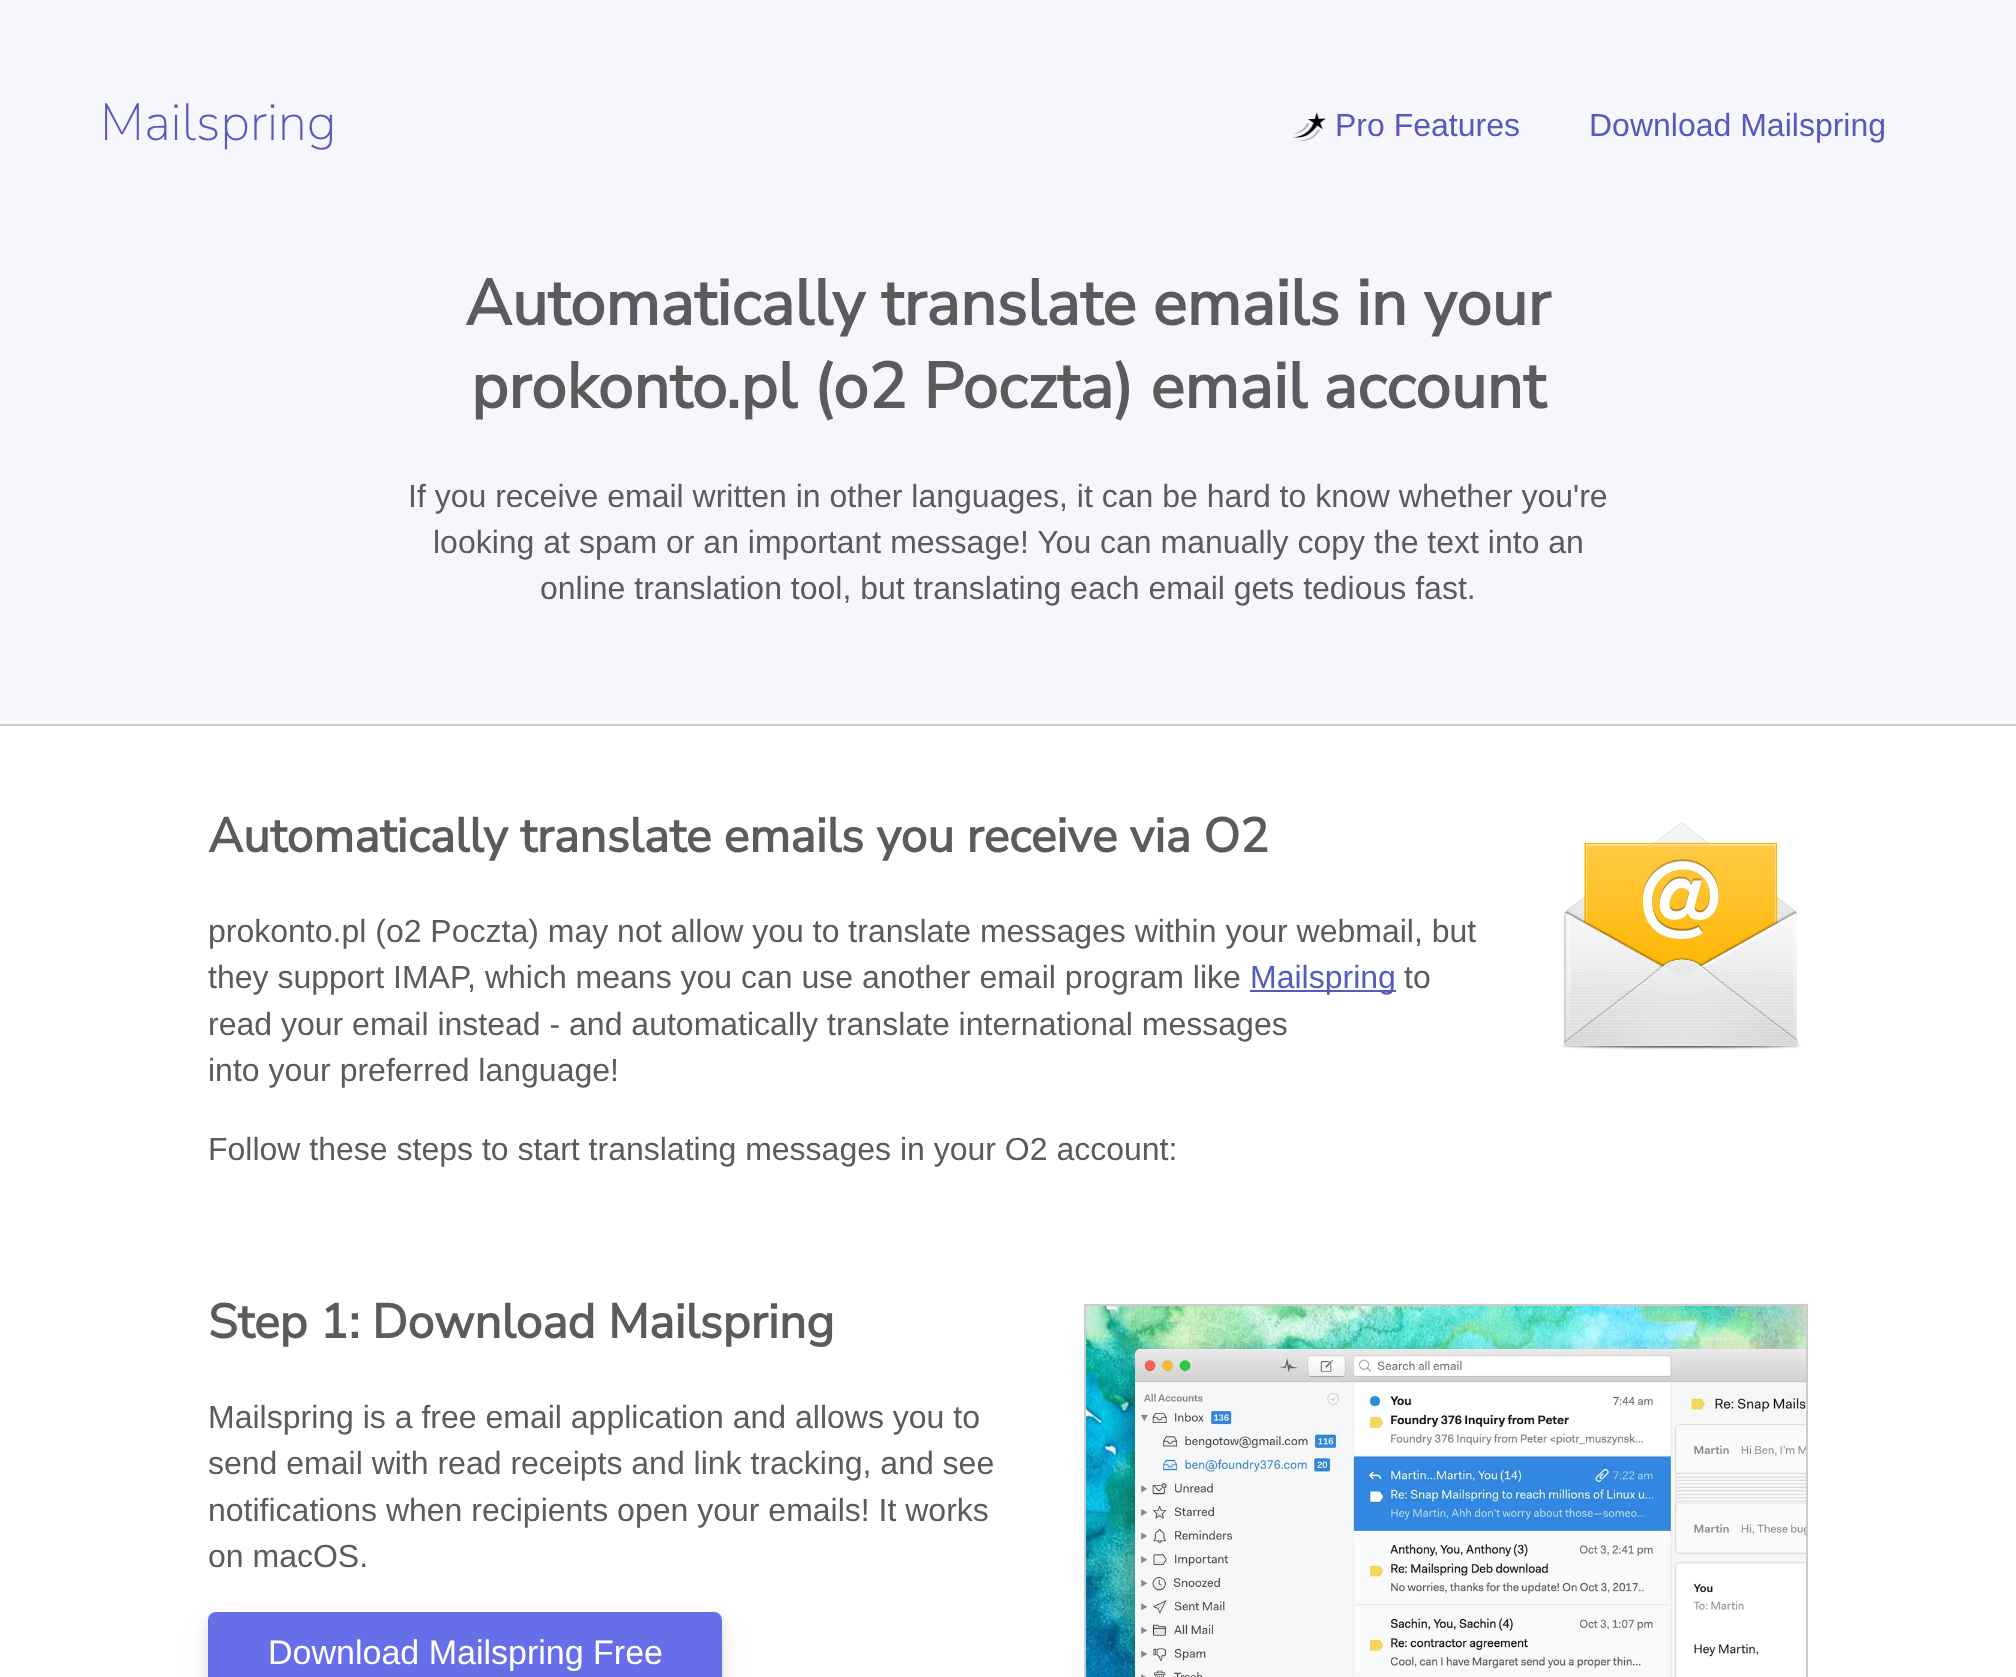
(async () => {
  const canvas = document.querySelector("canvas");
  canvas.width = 2016;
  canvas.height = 1677;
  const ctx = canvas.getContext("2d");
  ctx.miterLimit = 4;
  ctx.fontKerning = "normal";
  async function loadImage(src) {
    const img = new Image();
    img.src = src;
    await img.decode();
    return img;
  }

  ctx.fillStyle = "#ffffff";
  ctx.fillRect(0, 0, 2016, 1677);
  ctx.fillStyle = "#f8f6fd";
  ctx.fillRect(0, 0, 2016, 724);
  ctx.fillStyle = "#cccccc";
  ctx.fillRect(0, 724, 2016, 2);
  ctx.drawImage(await loadImage("img/1.png"), 1293, 112, 33, 30);
  ctx.drawImage(await loadImage("img/2.png"), 1560, 822, 242, 228);
  ctx.fillStyle = "#555abf";
  ctx.fillRect(1250, 990, 146, 2);
  ctx.fillStyle = "rgba(0, 0, 0, 0.08)";
  ctx.filter = "blur(6px)";
  ctx.beginPath();
  ctx.roundRect(208, 1618, 514, 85, 8);
  ctx.fill();
  ctx.filter = "none";
  ctx.fillStyle = "rgba(49, 49, 93, 0.1)";
  ctx.filter = "blur(14px)";
  ctx.beginPath();
  ctx.roundRect(208, 1626, 514, 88, 8);
  ctx.fill();
  ctx.filter = "none";
  ctx.fillStyle = "#666ee8";
  ctx.beginPath();
  ctx.roundRect(208, 1612, 514, 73, 8);
  ctx.fill();
  ctx.strokeStyle = "#cccccc";
  ctx.lineWidth = 2;
  ctx.strokeRect(1085, 1305, 722, 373);
  ctx.drawImage(await loadImage("img/3.png"), 1086, 1306, 720, 371);
  ctx.font = "200 52px Nunito Sans";
  ctx.fillStyle = "#555abf";
  ctx.fillText("Mailspring", 100, 140);
  ctx.font = "32px Liberation Sans";
  ctx.fillText("Pro Features", 1335, 136);
  ctx.fillText("Download Mailspring", 1589, 136);
  ctx.font = "bold 64px Nunito Sans";
  ctx.fillStyle = "#5b5b5b";
  ctx.fillText("Automatically translate emails in your", 465, 325);
  ctx.fillText("prokonto.pl (o2 Poczta) email account", 471, 408);
  ctx.font = "32px Liberation Sans";
  for (const [text, x, y] of [
    ["If you receive email written in other languages, it can be hard to know whether you're", 408, 507],
    ["looking at spam or an important message! You can manually copy the text into an", 433, 553],
    ["online translation tool, but translating each email gets tedious fast.", 540, 599],
  ]) {
    ctx.fillText(text, x, y);
  }
  ctx.font = "bold 48px Nunito Sans";
  ctx.fillText("Automatically translate emails you receive via O2", 208, 852);
  ctx.font = "32px Liberation Sans";
  ctx.fillText("prokonto.pl (o2 Poczta) may not allow you to translate messages within your webmail, but", 208, 942);
  ctx.fillText("they support IMAP, which means you can use another email program like", 208, 988);
  ctx.fillStyle = "#555abf";
  ctx.fillText("Mailspring", 1250, 988);
  ctx.fillStyle = "#5b5b5b";
  for (const [text, x, y] of [
    ["to", 1404, 988],
    ["read your email instead - and automatically translate international messages", 208, 1035],
    ["into your preferred language!", 208, 1081],
    ["Follow these steps to start translating messages in your O2 account:", 208, 1160],
  ]) {
    ctx.fillText(text, x, y);
  }
  ctx.font = "bold 48px Nunito Sans";
  ctx.fillText("Step 1: Download Mailspring", 208, 1338);
  ctx.font = "32px Liberation Sans";
  for (const [text, x, y] of [
    ["Mailspring is a free email application and allows you to", 208, 1428],
    ["send email with read receipts and link tracking, and see", 208, 1474],
    ["notifications when recipients open your emails! It works", 208, 1521],
    ["on macOS.", 208, 1567],
  ]) {
    ctx.fillText(text, x, y);
  }
  ctx.font = "34px Liberation Sans";
  ctx.fillStyle = "#ffffff";
  ctx.fillText("Download Mailspring Free", 268, 1664);
})();
